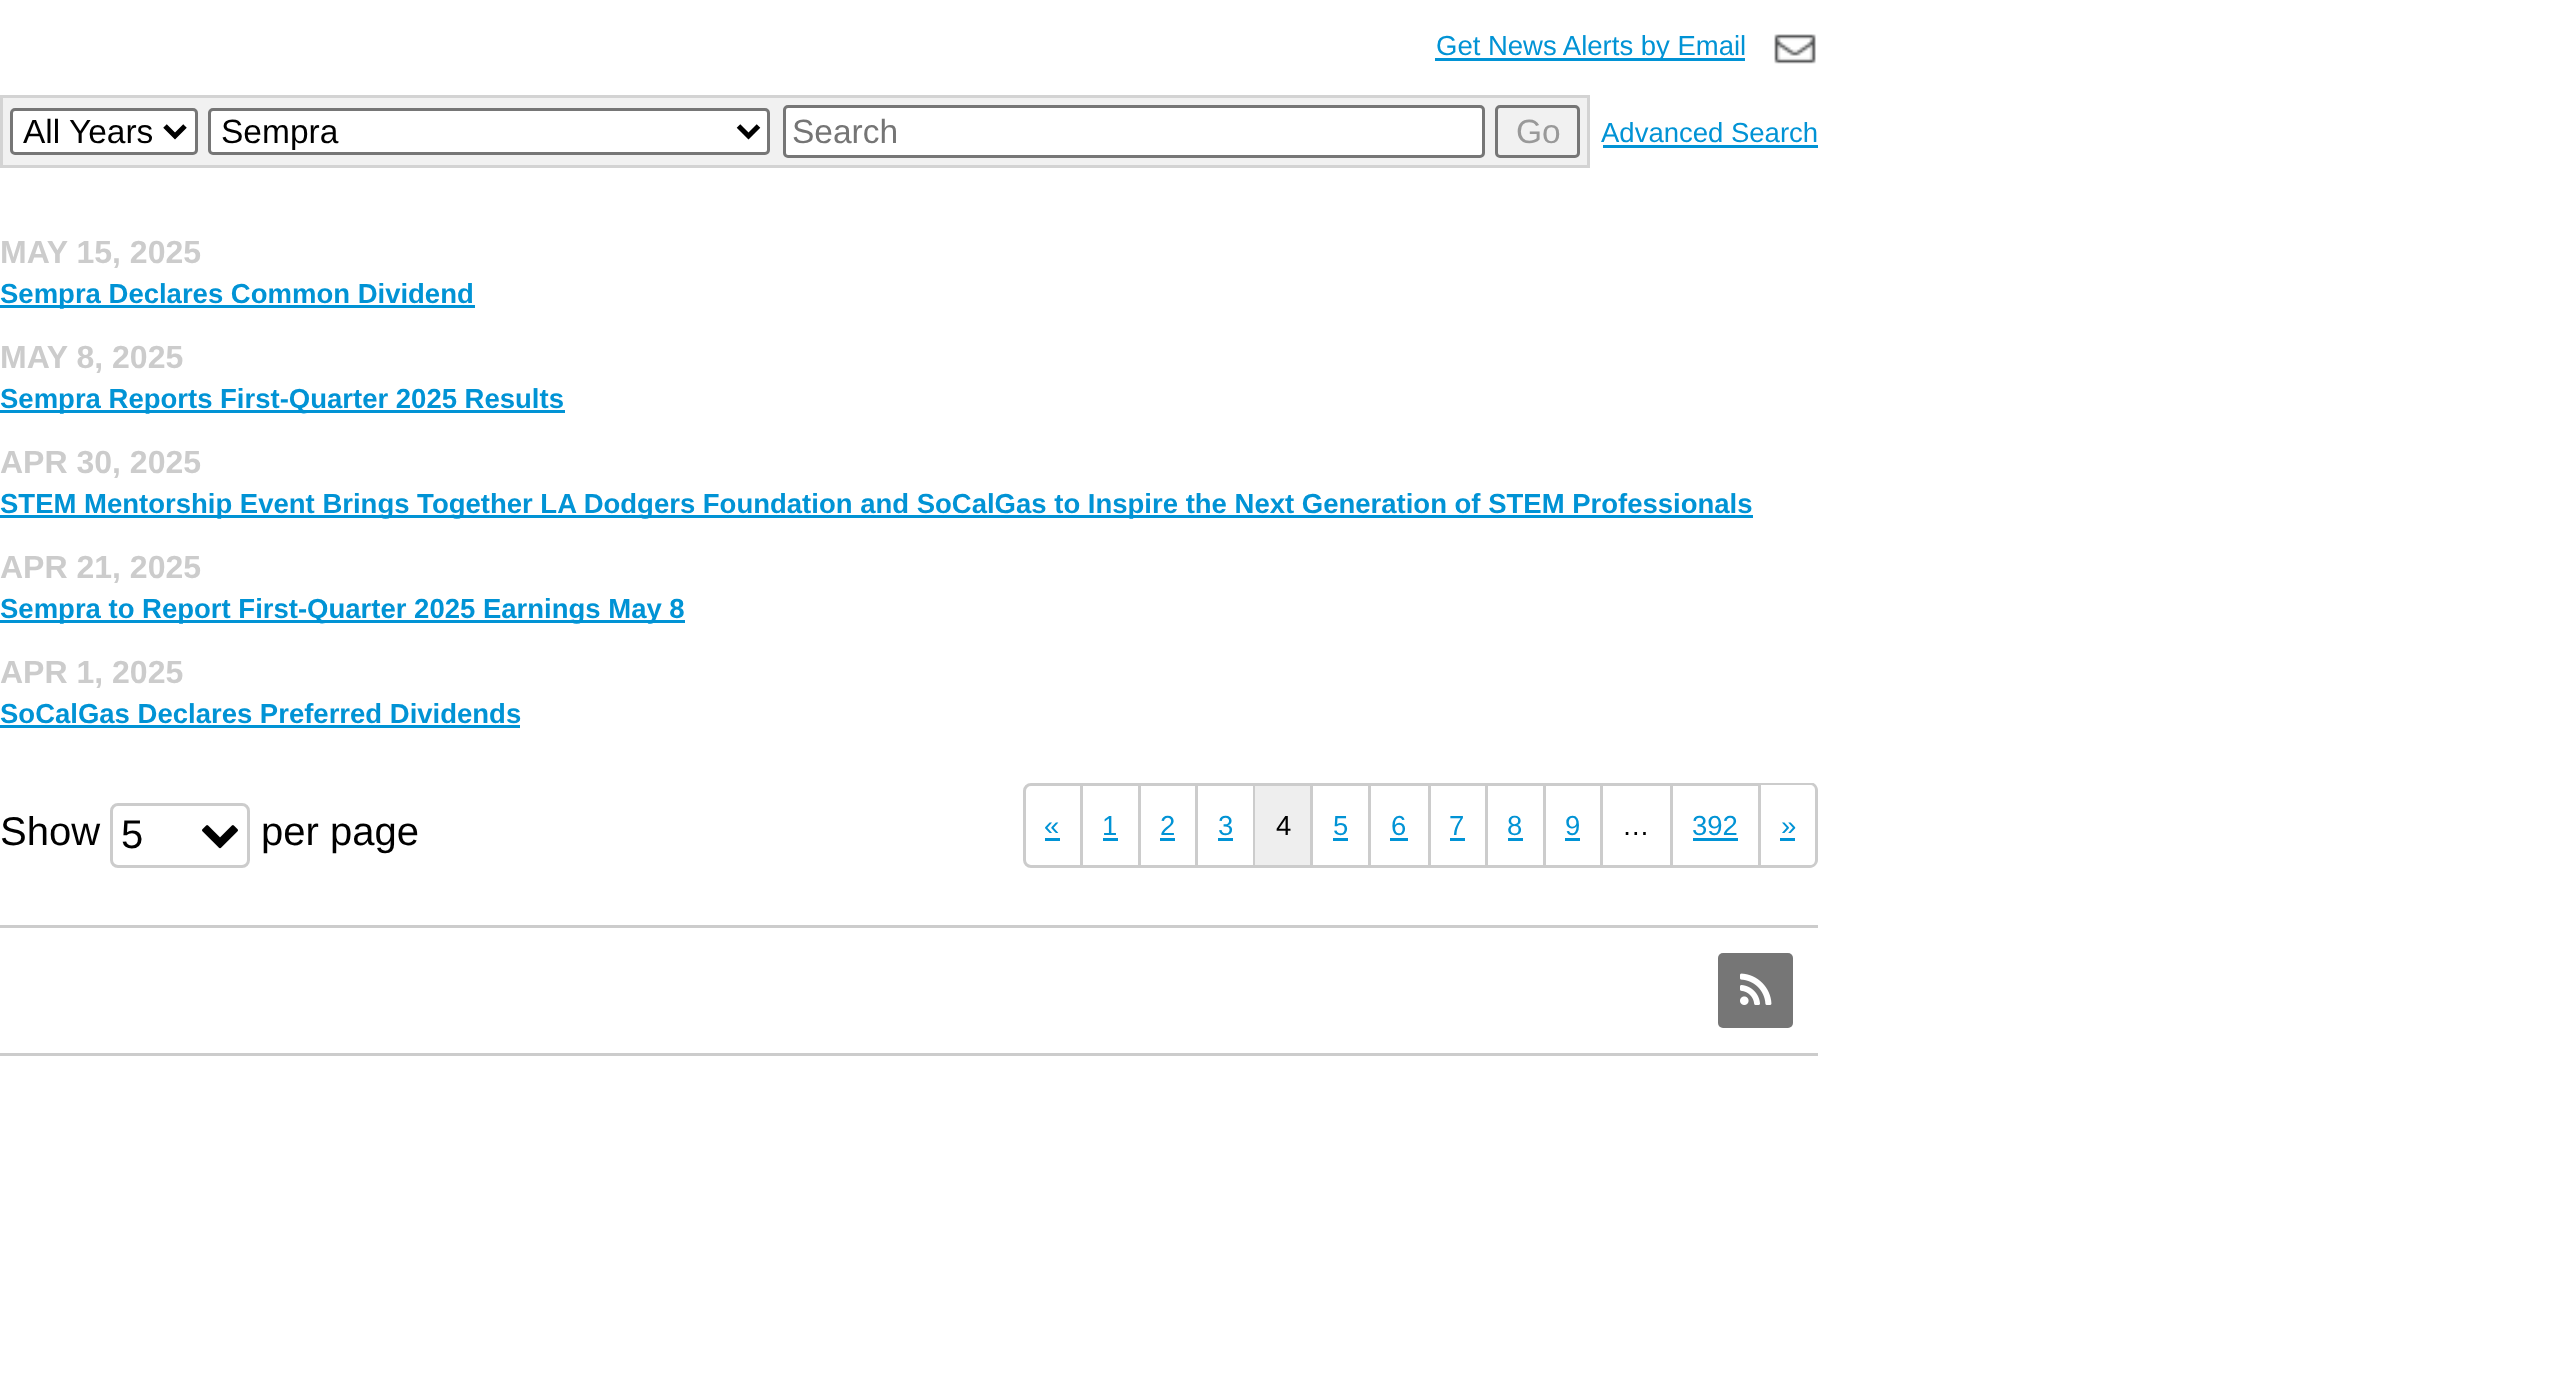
(async () => {
  const canvas = document.querySelector("canvas");
  canvas.width = 2556;
  canvas.height = 1390;
  const ctx = canvas.getContext("2d");
  ctx.miterLimit = 4;
  ctx.fontKerning = "normal";
  async function loadImage(src) {
    const img = new Image();
    img.src = src;
    await img.decode();
    return img;
  }
  let path;

  ctx.fillStyle = "#ffffff";
  ctx.fillRect(0, 0, 2556, 1390);
  ctx.fillStyle = "#0193d5";
  ctx.fillRect(1435, 58, 310, 3);
  ctx.drawImage(await loadImage("img/1.png"), 1774, 34, 42, 30);
  ctx.fillStyle = "#f1f1f1";
  ctx.beginPath();
  ctx.rect(1.5, 96.5, 1587, 70);
  ctx.fill();
  ctx.strokeStyle = "#d3d3d3";
  ctx.lineWidth = 3;
  ctx.stroke();
  ctx.fillStyle = "#ffffff";
  ctx.beginPath();
  ctx.roundRect(11.5, 109.5, 185, 44, 3.5);
  ctx.fill();
  ctx.strokeStyle = "#767676";
  ctx.stroke();
  path = new Path2D("M165 126L175 136L185 126");
  ctx.strokeStyle = "#000000";
  ctx.lineWidth = 5;
  ctx.stroke(path);
  ctx.beginPath();
  ctx.roundRect(209.5, 109.5, 559, 44, 3.5);
  ctx.fill();
  ctx.strokeStyle = "#767676";
  ctx.lineWidth = 3;
  ctx.stroke();
  path = new Path2D("M738.5 126L748.5 136L758.5 126");
  ctx.strokeStyle = "#000000";
  ctx.lineWidth = 5;
  ctx.stroke(path);
  ctx.beginPath();
  ctx.roundRect(784.5, 106.5, 699, 50, 3.5);
  ctx.fill();
  ctx.strokeStyle = "#767676";
  ctx.lineWidth = 3;
  ctx.stroke();
  ctx.beginPath();
  ctx.roundRect(1496.5, 106.5, 82, 50, 3.5);
  ctx.stroke();
  for (const [x, y, w, h, color] of [
    [1603, 145, 215, 3, "#0193d5"],
    [0, 305, 475, 3, "#0193d5"],
    [0, 410, 565, 3, "#0193d5"],
    [0, 515, 1753, 3, "#0193d5"],
    [0, 620, 685, 3, "#0193d5"],
    [0, 725, 520, 3, "#0193d5"],
  ]) {
    ctx.fillStyle = color;
    ctx.fillRect(x, y, w, h);
  }
  ctx.beginPath();
  ctx.roundRect(111.5, 804.5, 137, 62, 6.5);
  ctx.strokeStyle = "#cccccc";
  ctx.stroke();
  ctx.drawImage(await loadImage("img/2.png"), 202, 825, 36, 24);
  ctx.beginPath();
  ctx.roundRect(1024.5, 784.5, 57, 82, [6.5, 0, 0, 6.5]);
  ctx.stroke();
  for (const [x, y, w, h, color] of [
    [1045, 838, 15, 3, "#0193d5"],
    [1083, 783, 57, 3, "#cccccc"],
    [1138, 783, 3, 85, "#cccccc"],
    [1083, 865, 57, 3, "#cccccc"],
    [1103, 838, 15, 3, "#0193d5"],
    [1140, 783, 230, 3, "#cccccc"],
    [1195, 783, 3, 85, "#cccccc"],
    [1140, 865, 58, 3, "#cccccc"],
    [1160, 838, 15, 3, "#0193d5"],
    [1253, 783, 2, 85, "#cccccc"],
    [1198, 865, 57, 3, "#cccccc"],
    [1218, 838, 15, 3, "#0193d5"],
    [1255, 786, 55, 79, "#eeeeee"],
    [1310, 783, 3, 85, "#cccccc"],
    [1255, 865, 58, 3, "#cccccc"],
    [1368, 783, 3, 85, "#cccccc"],
    [1313, 865, 57, 3, "#cccccc"],
    [1333, 838, 15, 3, "#0193d5"],
    [1370, 783, 60, 3, "#cccccc"],
    [1428, 783, 3, 85, "#cccccc"],
    [1370, 865, 60, 3, "#cccccc"],
    [1390, 838, 18, 3, "#0193d5"],
    [1430, 783, 115, 3, "#cccccc"],
    [1485, 783, 3, 85, "#cccccc"],
    [1430, 865, 58, 3, "#cccccc"],
    [1450, 838, 15, 3, "#0193d5"],
    [1543, 783, 3, 85, "#cccccc"],
    [1488, 865, 57, 3, "#cccccc"],
    [1508, 838, 15, 3, "#0193d5"],
    [1545, 783, 215, 3, "#cccccc"],
    [1600, 783, 3, 85, "#cccccc"],
    [1545, 865, 58, 3, "#cccccc"],
    [1565, 838, 15, 3, "#0193d5"],
    [1670, 783, 3, 85, "#cccccc"],
    [1603, 865, 70, 3, "#cccccc"],
    [1758, 783, 3, 85, "#cccccc"],
    [1673, 865, 87, 3, "#cccccc"],
    [1693, 838, 45, 3, "#0193d5"],
  ]) {
    ctx.fillStyle = color;
    ctx.fillRect(x, y, w, h);
  }
  ctx.save();
  ctx.beginPath();
  ctx.rect(0, 783, 1818, 105);
  ctx.clip();
  ctx.fillStyle = "#cccccc";
  path = new Path2D("M1760 782H1810C1814 782 1818 786 1818 790V860C1818 864 1814 868 1810 868H1760ZM1760 785H1810C1813 785 1815 787 1815 790V860C1815 863 1813 865 1810 865H1760Z");
  ctx.fill(path, "evenodd");
  ctx.restore();
  for (const [x, y, w, h, color] of [
    [1780, 838, 15, 3, "#0193d5"],
    [0, 925, 1818, 3, "#cccccc"],
    [0, 1053, 1818, 3, "#cccccc"],
  ]) {
    ctx.fillStyle = color;
    ctx.fillRect(x, y, w, h);
  }
  ctx.fillStyle = "#767676";
  ctx.beginPath();
  ctx.roundRect(1718, 953, 75, 75, 5);
  ctx.fill();
  ctx.drawImage(await loadImage("img/3.png"), 1740, 973, 32, 32);
  ctx.font = "27.5px Liberation Sans";
  ctx.fillStyle = "#0193d5";
  ctx.fillText("Get News Alerts by Email", 1436, 55);
  ctx.font = "33.5px Liberation Sans";
  ctx.fillStyle = "#000000";
  ctx.fillText("All Years", 23, 143);
  ctx.fillText("Sempra", 221, 143);
  ctx.fillStyle = "#757575";
  ctx.fillText("Search", 792, 143);
  ctx.fillStyle = "#999999";
  ctx.fillText("Go", 1516, 143);
  ctx.font = "27.5px Liberation Sans";
  ctx.fillStyle = "#0193d5";
  ctx.fillText("Advanced Search", 1601, 142);
  ctx.font = "bold 32px Liberation Sans";
  ctx.fillStyle = "#cccccc";
  ctx.fillText("MAY 15, 2025", 0, 263);
  ctx.font = "bold 27.5px Liberation Sans";
  ctx.fillStyle = "#0193d5";
  ctx.fillText("Sempra Declares Common Dividend", 0, 303);
  ctx.font = "bold 32px Liberation Sans";
  ctx.fillStyle = "#cccccc";
  ctx.fillText("MAY 8, 2025", 0, 368);
  ctx.font = "bold 27.5px Liberation Sans";
  ctx.fillStyle = "#0193d5";
  ctx.fillText("Sempra Reports First-Quarter 2025 Results", 0, 408);
  ctx.font = "bold 32px Liberation Sans";
  ctx.fillStyle = "#cccccc";
  ctx.fillText("APR 30, 2025", 0, 473);
  ctx.font = "bold 27.5px Liberation Sans";
  ctx.fillStyle = "#0193d5";
  ctx.fillText("STEM Mentorship Event Brings Together LA Dodgers Foundation and SoCalGas to Inspire the Next Generation of STEM Professionals", 0, 513);
  ctx.font = "bold 32px Liberation Sans";
  ctx.fillStyle = "#cccccc";
  ctx.fillText("APR 21, 2025", 0, 578);
  ctx.font = "bold 27.5px Liberation Sans";
  ctx.fillStyle = "#0193d5";
  ctx.fillText("Sempra to Report First-Quarter 2025 Earnings May 8", 0, 618);
  ctx.font = "bold 32px Liberation Sans";
  ctx.fillStyle = "#cccccc";
  ctx.fillText("APR 1, 2025", 0, 683);
  ctx.font = "bold 27.5px Liberation Sans";
  ctx.fillStyle = "#0193d5";
  ctx.fillText("SoCalGas Declares Preferred Dividends", 0, 723);
  ctx.font = "40px Liberation Sans";
  ctx.fillStyle = "#000000";
  for (const [text, x, y] of [
    ["Show", 0, 845],
    ["5", 121, 848],
    ["per page", 261, 845],
  ]) {
    ctx.fillText(text, x, y);
  }
  ctx.font = "27.5px Liberation Sans";
  ctx.fillStyle = "#0193d5";
  for (const [text, x, y] of [
    ["«", 1044, 835],
    ["1", 1102, 835],
    ["2", 1160, 835],
    ["3", 1218, 835],
  ]) {
    ctx.fillText(text, x, y);
  }
  ctx.fillStyle = "#000000";
  ctx.fillText("4", 1276, 835);
  ctx.fillStyle = "#0193d5";
  for (const [text, x, y] of [
    ["5", 1333, 835],
    ["6", 1391, 835],
    ["7", 1449, 835],
    ["8", 1507, 835],
    ["9", 1565, 835],
  ]) {
    ctx.fillText(text, x, y);
  }
  ctx.fillStyle = "#000000";
  ctx.fillText("…", 1622, 835);
  ctx.fillStyle = "#0193d5";
  ctx.fillText("392", 1692, 835);
  ctx.fillText("»", 1781, 835);
})();
